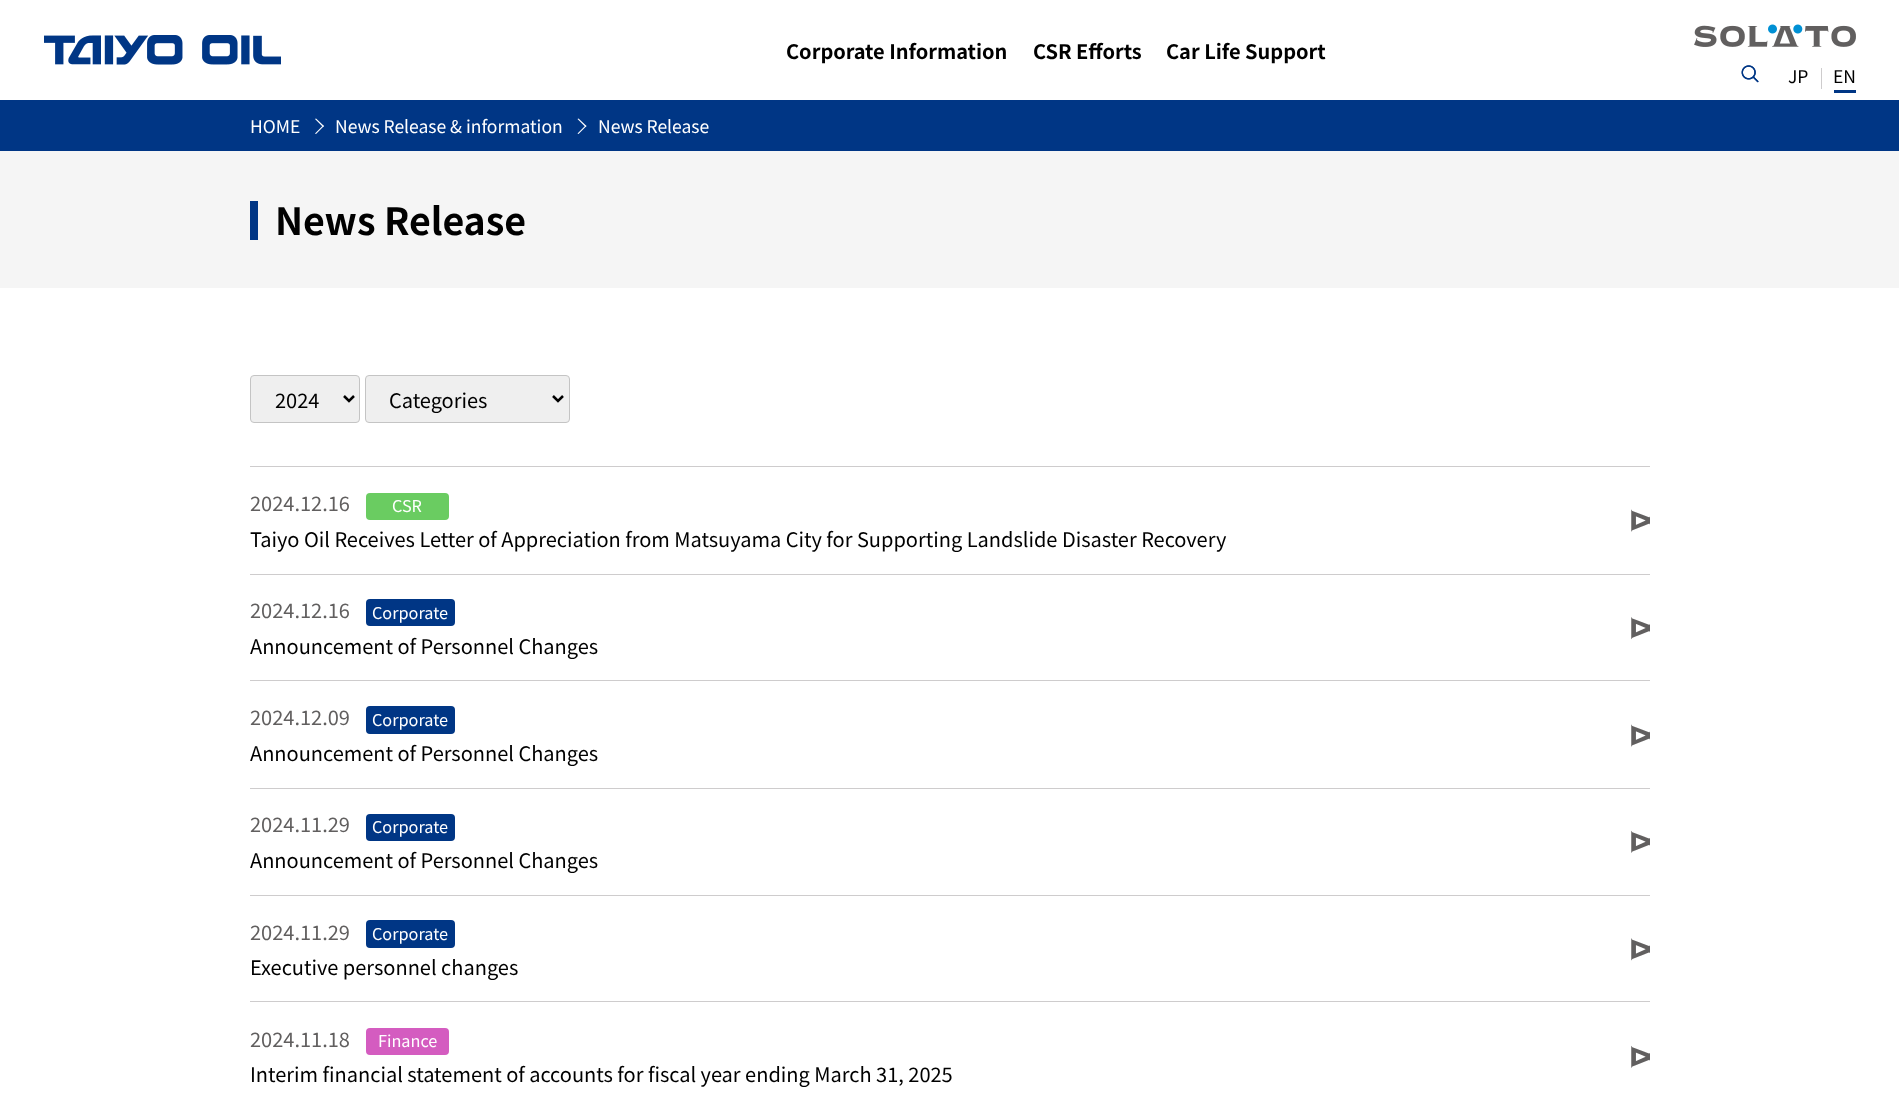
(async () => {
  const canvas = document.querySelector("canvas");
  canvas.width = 1899;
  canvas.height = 1103;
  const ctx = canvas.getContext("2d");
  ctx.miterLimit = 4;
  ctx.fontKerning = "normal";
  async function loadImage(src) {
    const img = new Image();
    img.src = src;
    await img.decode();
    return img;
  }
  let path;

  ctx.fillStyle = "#ffffff";
  ctx.fillRect(0, 0, 1899, 1103);
  ctx.drawImage(await loadImage("img/1.png"), 44, 35, 237, 30);
  ctx.drawImage(await loadImage("img/2.png"), 1694, 24, 162, 23);
  ctx.drawImage(await loadImage("img/3.png"), 1741, 65, 18, 18);
  ctx.drawImage(await loadImage("img/4.png"), 1741, 65, 18, 18);
  for (const [x, y, w, h, color] of [
    [1821, 68, 1, 21, "#cecccd"],
    [1834, 90, 22, 3, "#003685"],
    [0, 100, 1899, 51, "#003685"],
  ]) {
    ctx.fillStyle = color;
    ctx.fillRect(x, y, w, h);
  }
  ctx.fillStyle = "#ffffff";
  path = new Path2D("M316 118.5L324 126L323 127L315 119Z");
  ctx.fill(path);
  path = new Path2D("M323 125.5L324 126L316 134L315 133.5Z");
  ctx.fill(path);
  path = new Path2D("M578.5 118.5L586.5 126L585.5 127L577.5 119Z");
  ctx.fill(path);
  path = new Path2D("M585.5 125.5L586.5 126L578.5 134L577.5 133.5Z");
  ctx.fill(path);
  ctx.fillStyle = "#f5f5f5";
  ctx.fillRect(0, 151, 1899, 137);
  ctx.fillStyle = "#003685";
  ctx.fillRect(250, 201, 8, 39);
  ctx.fillStyle = "#efefef";
  ctx.beginPath();
  ctx.roundRect(250.5, 375.5, 109, 47, 3.5);
  ctx.fill();
  ctx.strokeStyle = "#c4c4c4";
  ctx.stroke();
  path = new Path2D("M344 396L349 401L354 396");
  ctx.strokeStyle = "#000000";
  ctx.lineWidth = 2.5;
  ctx.stroke(path);
  ctx.beginPath();
  ctx.roundRect(365.5, 375.5, 204, 47, 3.5);
  ctx.fill();
  ctx.strokeStyle = "#c4c4c4";
  ctx.lineWidth = 1;
  ctx.stroke();
  path = new Path2D("M553 396L558 401L563 396");
  ctx.strokeStyle = "#000000";
  ctx.lineWidth = 2.5;
  ctx.stroke(path);
  ctx.fillStyle = "#cecccd";
  ctx.fillRect(250, 466, 1400, 1);
  ctx.fillRect(250, 574, 1400, 1);
  ctx.fillStyle = "#6acc61";
  ctx.beginPath();
  ctx.roundRect(366, 493, 83, 27, 4);
  ctx.fill();
  ctx.drawImage(await loadImage("img/5.png"), 1631, 509, 19, 23);
  ctx.fillStyle = "#cecccd";
  ctx.fillRect(250, 680, 1400, 1);
  ctx.fillStyle = "#003685";
  ctx.beginPath();
  ctx.roundRect(366, 599, 89, 27, 4);
  ctx.fill();
  ctx.drawImage(await loadImage("img/6.png"), 1631, 617, 19, 23);
  ctx.fillStyle = "#cecccd";
  ctx.fillRect(250, 788, 1400, 1);
  ctx.fillStyle = "#003685";
  ctx.beginPath();
  ctx.roundRect(366, 706, 89, 28, 4);
  ctx.fill();
  ctx.drawImage(await loadImage("img/5.png"), 1631, 724, 19, 23);
  ctx.fillStyle = "#cecccd";
  ctx.fillRect(250, 895, 1400, 1);
  ctx.fillStyle = "#003685";
  ctx.beginPath();
  ctx.roundRect(366, 814, 89, 27, 4);
  ctx.fill();
  ctx.drawImage(await loadImage("img/7.png"), 1631, 830, 19, 23);
  ctx.fillStyle = "#cecccd";
  ctx.fillRect(250, 1001, 1400, 1);
  ctx.fillStyle = "#003685";
  ctx.beginPath();
  ctx.roundRect(366, 920, 89, 28, 4);
  ctx.fill();
  ctx.drawImage(await loadImage("img/8.png"), 1631, 938, 19, 23);
  ctx.fillStyle = "#d45cc0";
  ctx.beginPath();
  ctx.roundRect(366, 1028, 83, 27, 4);
  ctx.fill();
  ctx.drawImage(await loadImage("img/7.png"), 1631, 1045, 19, 23);
  ctx.font = "bold 20px Noto Sans JP";
  ctx.fillStyle = "#000000";
  for (const [text, x, y] of [
    ["Corporate Information", 786, 59],
    ["CSR Efforts", 1033, 59],
    ["Car Life Support", 1166, 59],
  ]) {
    ctx.fillText(text, x, y);
  }
  ctx.font = "17.5px Noto Sans JP";
  ctx.fillText("JP", 1788, 83);
  ctx.fillText("EN", 1833, 83);
  ctx.fillStyle = "#ffffff";
  for (const [text, x, y] of [
    ["HOME", 250, 133],
    ["News Release & information", 335, 133],
    ["News Release", 598, 133],
  ]) {
    ctx.fillText(text, x, y);
  }
  ctx.font = "bold 37.5px Noto Sans JP";
  ctx.fillStyle = "#000000";
  ctx.fillText("News Release", 275, 235);
  ctx.font = "20px Noto Sans JP";
  ctx.fillText("2024", 275, 408);
  ctx.fillText("Categories", 389, 408);
  ctx.fillStyle = "#615f5f";
  ctx.fillText("2024.12.16", 250, 511);
  ctx.font = "16.25px Noto Sans JP";
  ctx.fillStyle = "#ffffff";
  ctx.fillText("CSR", 392, 512);
  ctx.font = "20px Noto Sans JP";
  ctx.fillStyle = "#000000";
  ctx.fillText("Taiyo Oil Receives Letter of Appreciation from Matsuyama City for Supporting Landslide Disaster Recovery", 250, 547);
  ctx.fillStyle = "#615f5f";
  ctx.fillText("2024.12.16", 250, 618);
  ctx.font = "16.25px Noto Sans JP";
  ctx.fillStyle = "#ffffff";
  ctx.fillText("Corporate", 372, 619);
  ctx.font = "20px Noto Sans JP";
  ctx.fillStyle = "#000000";
  ctx.fillText("Announcement of Personnel Changes", 250, 654);
  ctx.fillStyle = "#615f5f";
  ctx.fillText("2024.12.09", 250, 725);
  ctx.font = "16.25px Noto Sans JP";
  ctx.fillStyle = "#ffffff";
  ctx.fillText("Corporate", 372, 726);
  ctx.font = "20px Noto Sans JP";
  ctx.fillStyle = "#000000";
  ctx.fillText("Announcement of Personnel Changes", 250, 761);
  ctx.fillStyle = "#615f5f";
  ctx.fillText("2024.11.29", 250, 832);
  ctx.font = "16.25px Noto Sans JP";
  ctx.fillStyle = "#ffffff";
  ctx.fillText("Corporate", 372, 833);
  ctx.font = "20px Noto Sans JP";
  ctx.fillStyle = "#000000";
  ctx.fillText("Announcement of Personnel Changes", 250, 868);
  ctx.fillStyle = "#615f5f";
  ctx.fillText("2024.11.29", 250, 940);
  ctx.font = "16.25px Noto Sans JP";
  ctx.fillStyle = "#ffffff";
  ctx.fillText("Corporate", 372, 940);
  ctx.font = "20px Noto Sans JP";
  ctx.fillStyle = "#000000";
  ctx.fillText("Executive personnel changes", 250, 975);
  ctx.fillStyle = "#615f5f";
  ctx.fillText("2024.11.18", 250, 1047);
  ctx.font = "16.25px Noto Sans JP";
  ctx.fillStyle = "#ffffff";
  ctx.fillText("Finance", 378, 1047);
  ctx.font = "20px Noto Sans JP";
  ctx.fillStyle = "#000000";
  ctx.fillText("Interim financial statement of accounts for fiscal year ending March 31, 2025", 250, 1082);
})();
